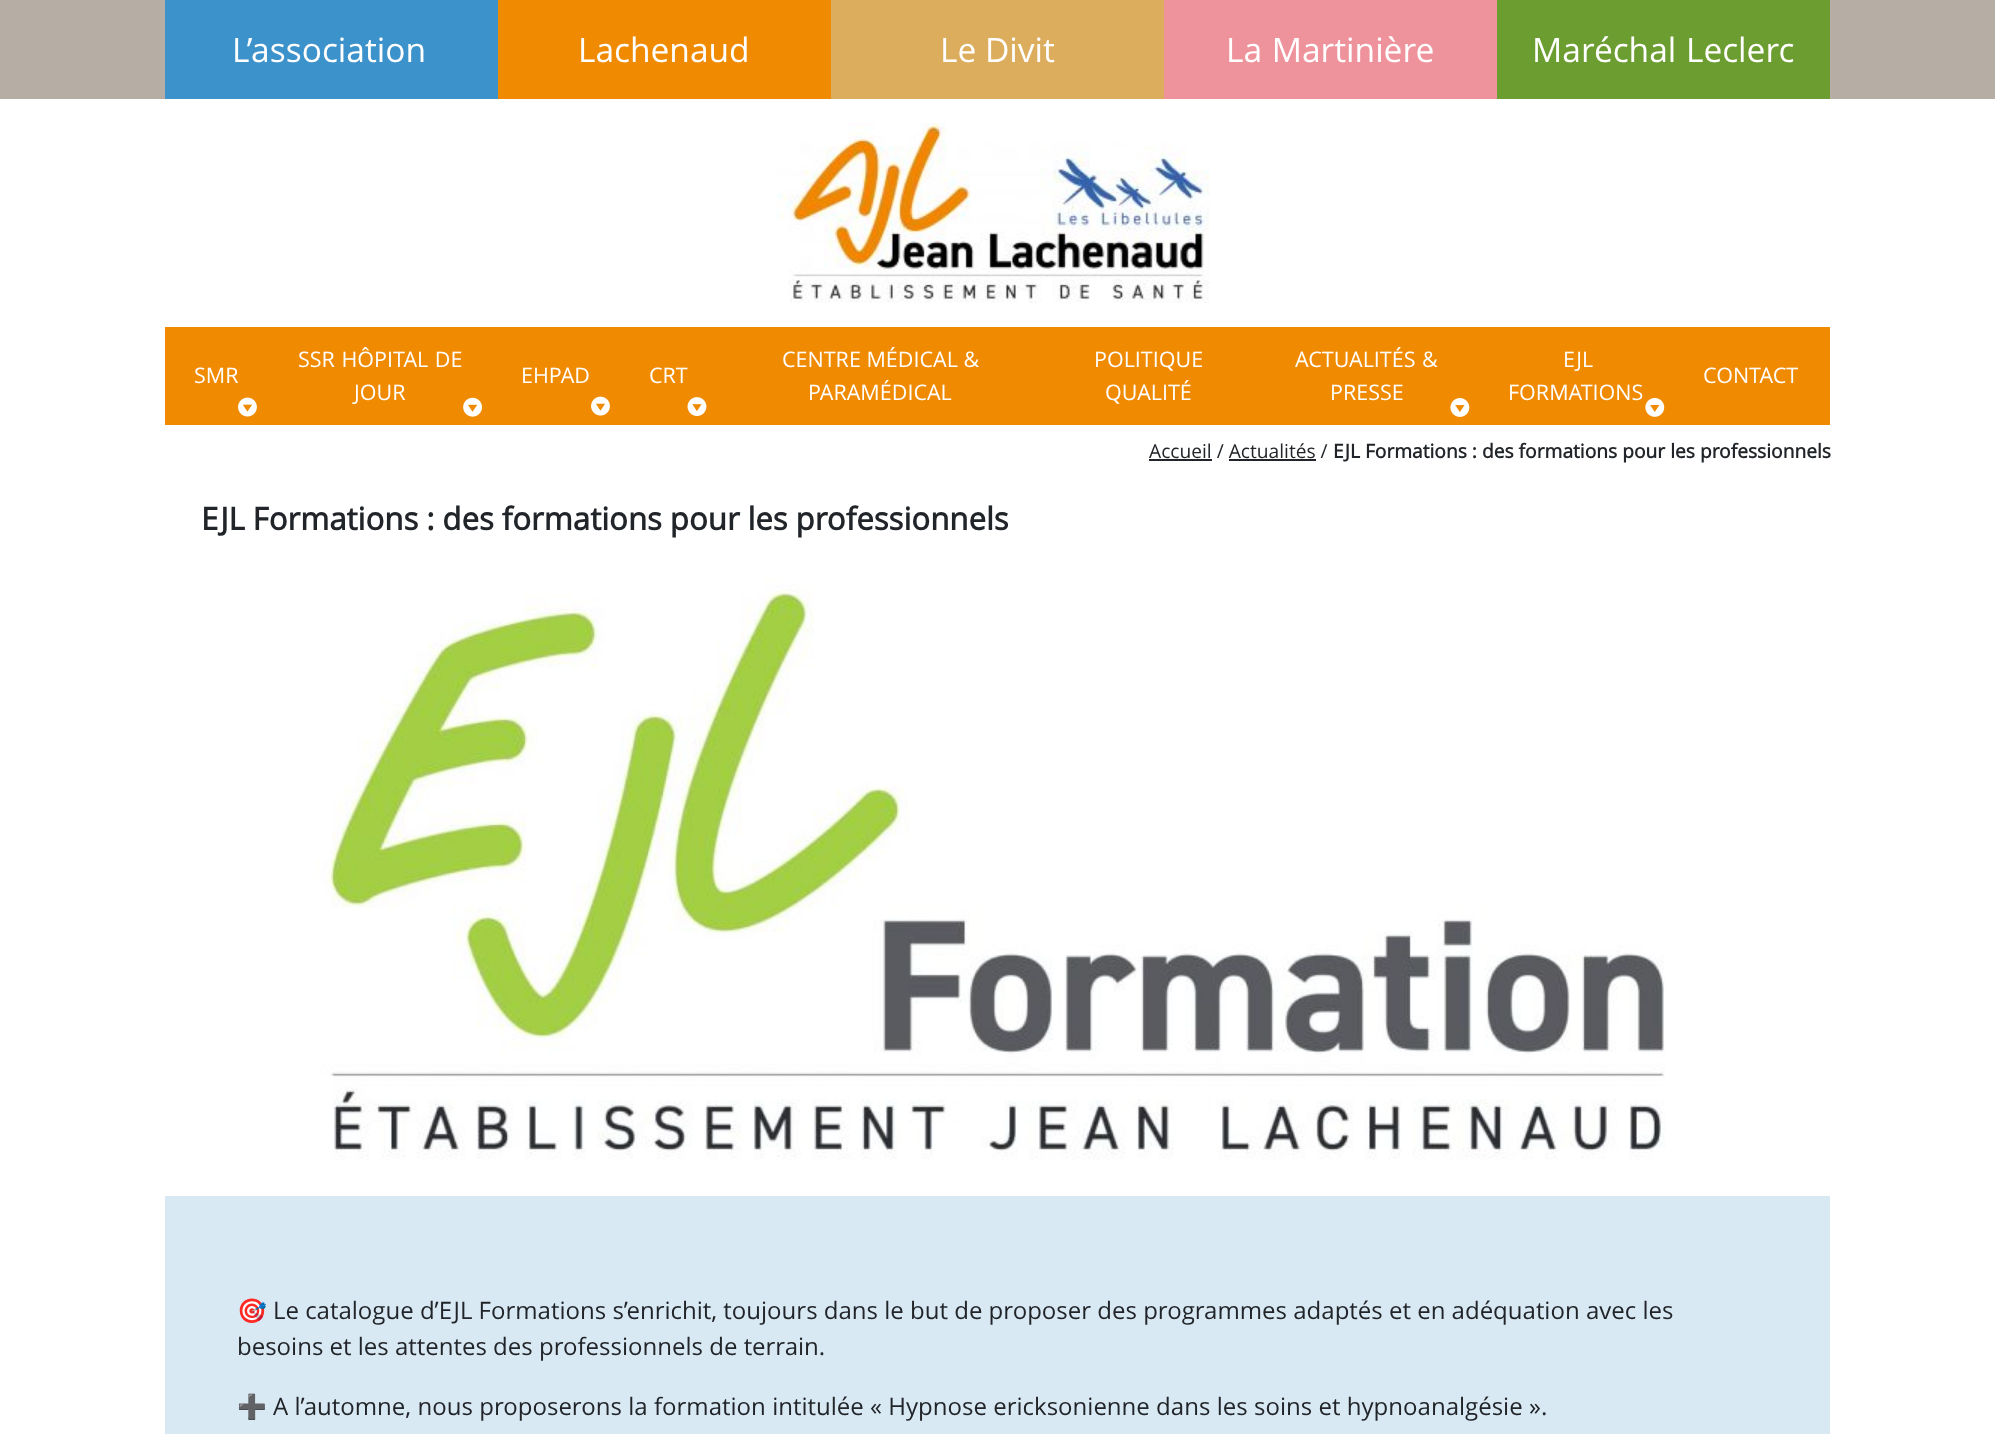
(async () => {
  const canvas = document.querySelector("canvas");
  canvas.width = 1995;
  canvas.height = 1434;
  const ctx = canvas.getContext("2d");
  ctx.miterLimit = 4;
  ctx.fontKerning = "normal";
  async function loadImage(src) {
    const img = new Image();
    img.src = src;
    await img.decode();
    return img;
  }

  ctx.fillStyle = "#ffffff";
  ctx.fillRect(0, 0, 1995, 1434);
  for (const [x, y, w, h, color] of [
    [0, 0, 1995, 99, "#b6ada5"],
    [165, 0, 333, 99, "#3c92ca"],
    [498, 0, 333, 99, "#f08a00"],
    [831, 0, 333, 99, "#dcad5d"],
    [1164, 0, 333, 99, "#ee939c"],
    [1497, 0, 333, 99, "#6c9d31"],
  ]) {
    ctx.fillStyle = color;
    ctx.fillRect(x, y, w, h);
  }
  ctx.drawImage(await loadImage("img/1.png"), 777, 123, 433, 180);
  ctx.fillStyle = "#f08a00";
  ctx.fillRect(165, 327, 1665, 98);
  ctx.drawImage(await loadImage("img/2.png"), 238, 397, 19, 20);
  ctx.drawImage(await loadImage("img/3.png"), 463, 397, 19, 20);
  ctx.drawImage(await loadImage("img/4.png"), 591, 396, 19, 20);
  ctx.drawImage(await loadImage("img/5.png"), 687, 397, 20, 19);
  ctx.drawImage(await loadImage("img/6.png"), 1450, 398, 20, 19);
  ctx.drawImage(await loadImage("img/7.png"), 1645, 398, 20, 19);
  ctx.fillStyle = "#212529";
  ctx.fillRect(1149, 459, 63, 2);
  ctx.fillRect(1229, 459, 87, 2);
  ctx.drawImage(await loadImage("img/8.png"), 316, 578, 1349, 582);
  ctx.fillStyle = "#d9e9f4";
  ctx.fillRect(165, 1196, 1665, 238);
  ctx.font = "33.5px Open Sans";
  ctx.fillStyle = "#ffffff";
  for (const [text, x, y] of [
    ["L’association", 232, 62],
    ["Lachenaud", 578, 62],
    ["Le Divit", 940, 62],
  ]) {
    ctx.fillText(text, x, y);
  }
  ctx.wordSpacing = "1px";
  ctx.fillText("La Martinière", 1226, 62);
  ctx.fillText("Maréchal Leclerc", 1532, 62);
  ctx.wordSpacing = "0px";
  ctx.font = "21.5px Open Sans";
  ctx.fillText("SMR", 194, 383);
  ctx.wordSpacing = "1px";
  ctx.fillText("SSR HÔPITAL DE", 298, 367);
  ctx.wordSpacing = "0px";
  for (const [text, x, y] of [
    ["JOUR", 354, 400],
    ["EHPAD", 521, 383],
    ["CRT", 649, 383],
    ["CENTRE MÉDICAL &", 782, 367],
    ["PARAMÉDICAL", 808, 400],
    ["POLITIQUE", 1094, 367],
    ["QUALITÉ", 1105, 400],
  ]) {
    ctx.fillText(text, x, y);
  }
  ctx.wordSpacing = "1px";
  ctx.fillText("ACTUALITÉS &", 1295, 367);
  ctx.wordSpacing = "0px";
  for (const [text, x, y] of [
    ["PRESSE", 1330, 400],
    ["EJL", 1563, 367],
    ["FORMATIONS", 1508, 400],
    ["CONTACT", 1703, 383],
  ]) {
    ctx.fillText(text, x, y);
  }
  ctx.font = "19.2px Open Sans";
  ctx.fillStyle = "#212529";
  ctx.fillText("Accueil / Actualités /", 1149, 458);
  ctx.font = "bold 19.2px Open Sans";
  ctx.fillText("EJL Formations : des formations pour les professionnels", 1333, 458);
  ctx.wordSpacing = "-0.25px";
  ctx.font = "bold 31.2px Open Sans";
  ctx.fillText("EJL Formations : des formations pour les professionnels", 201, 530);
  ctx.wordSpacing = "0px";
  ctx.font = "24px Noto Color Emoji";
  ctx.fillText("🎯", 237, 1319);
  ctx.font = "24px Open Sans";
  ctx.fillText("Le catalogue d’EJL Formations s’enrichit, toujours dans le but de proposer des programmes adaptés et en adéquation avec les", 273, 1319);
  ctx.fillText("besoins et les attentes des professionnels de terrain.", 237, 1355);
  ctx.font = "24px Noto Color Emoji";
  ctx.fillText("➕", 237, 1415);
  ctx.wordSpacing = "0.1px";
  ctx.font = "24px Open Sans";
  ctx.fillText("A l’automne, nous proposerons la formation intitulée « Hypnose ericksonienne dans les soins et hypnoanalgésie ».", 273, 1415);
})();
